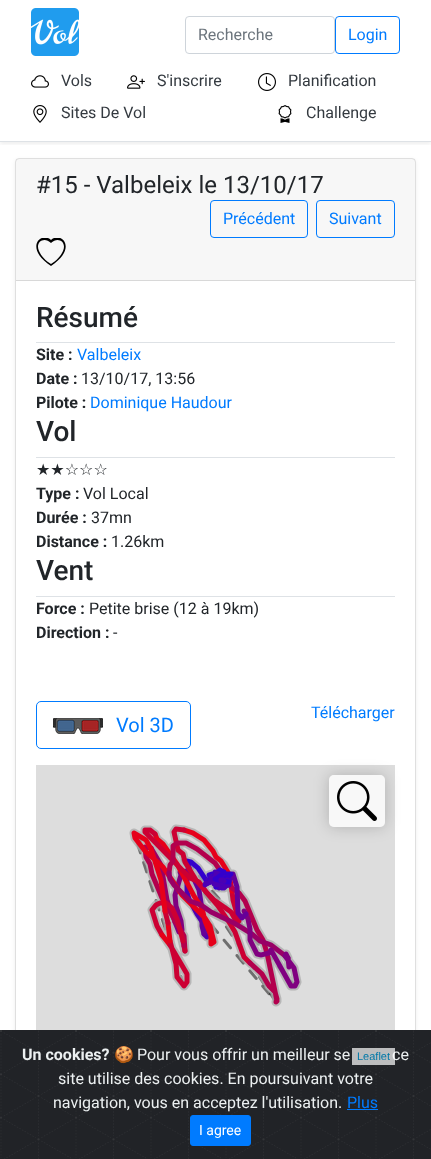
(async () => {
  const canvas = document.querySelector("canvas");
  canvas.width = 431;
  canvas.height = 1159;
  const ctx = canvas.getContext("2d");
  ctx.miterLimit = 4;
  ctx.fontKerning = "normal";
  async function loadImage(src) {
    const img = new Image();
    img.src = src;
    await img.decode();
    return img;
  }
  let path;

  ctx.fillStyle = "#ffffff";
  ctx.fillRect(0, 0, 431, 1159);
  ctx.drawImage(await loadImage("img/1.png"), 31, 8, 48, 48);
  ctx.beginPath();
  ctx.roundRect(185.5, 16.5, 149, 37, 3.5);
  ctx.strokeStyle = "#ced4da";
  ctx.stroke();
  ctx.beginPath();
  ctx.roundRect(335.5, 16.5, 64, 37, 3.5);
  ctx.strokeStyle = "#007bff";
  ctx.stroke();
  ctx.save();
  ctx.beginPath();
  ctx.rect(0, 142, 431, 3);
  ctx.clip();
  ctx.fillStyle = "rgba(0, 0, 0, 0.07)";
  ctx.filter = "blur(2px)";
  ctx.beginPath();
  ctx.rect(0, 71, 431, 73);
  ctx.fill();
  ctx.filter = "none";
  ctx.restore();
  ctx.fillStyle = "#dee2e6";
  ctx.fillRect(0, 141, 431, 1);
  ctx.drawImage(await loadImage("img/2.png"), 31, 75, 18, 13);
  ctx.drawImage(await loadImage("img/3.png"), 127, 75, 18, 14);
  ctx.drawImage(await loadImage("img/4.png"), 258, 73, 18, 18);
  ctx.drawImage(await loadImage("img/5.png"), 33, 105, 14, 18);
  ctx.drawImage(await loadImage("img/6.png"), 278, 105, 14, 18);
  ctx.fillStyle = "rgba(0, 0, 0, 0.07)";
  ctx.filter = "blur(2px)";
  ctx.beginPath();
  ctx.roundRect(15, 160, 401, 928, 4);
  ctx.fill();
  ctx.filter = "none";
  ctx.fillStyle = "#ffffff";
  ctx.beginPath();
  ctx.roundRect(15.5, 158.5, 400, 927, 3.5);
  ctx.fill();
  ctx.strokeStyle = "#dfdfdf";
  ctx.stroke();
  ctx.fillStyle = "rgba(0, 0, 0, 0.03)";
  ctx.fillRect(16, 159, 399, 121);
  ctx.fillStyle = "#d8d8d8";
  ctx.fillRect(16, 280, 399, 1);
  ctx.beginPath();
  ctx.roundRect(210.5, 200.5, 97, 37, 3.5);
  ctx.strokeStyle = "#007bff";
  ctx.stroke();
  ctx.beginPath();
  ctx.roundRect(316.5, 200.5, 78, 37, 3.5);
  ctx.stroke();
  ctx.save();
  ctx.beginPath();
  ctx.rect(36, 238, 30, 30);
  ctx.clip();
  ctx.fillStyle = "#000000";
  path = new Path2D("M51 243C44 236 35 242 39 251C41 256 46 261 51 264C56 261 61 256 63 251C67 242 58 236 51 243ZM51 266C23 247 42 231 51 240C60 231 79 247 51 266Z");
  ctx.fill(path, "evenodd");
  ctx.restore();
  for (const [x, y, w, h, color] of [
    [36, 342, 359, 1, "#dee2e6"],
    [36, 457, 359, 1, "#dee2e6"],
    [36, 596, 359, 1, "#dee2e6"],
  ]) {
    ctx.fillStyle = color;
    ctx.fillRect(x, y, w, h);
  }
  ctx.beginPath();
  ctx.roundRect(36.5, 701.5, 154, 47, 4.5);
  ctx.stroke();
  ctx.drawImage(await loadImage("img/7.png"), 53, 718, 50, 16);
  ctx.fillStyle = "#dddddd";
  ctx.fillRect(36, 765, 359, 265);
  ctx.drawImage(await loadImage("img/8.png"), 129, 824, 173, 183);
  ctx.save();
  path = new Path2D("M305 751H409V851H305ZM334 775H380C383 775 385 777 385 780V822C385 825 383 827 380 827H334C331 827 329 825 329 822V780C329 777 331 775 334 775Z");
  ctx.clip(path, "evenodd");
  ctx.fillStyle = "rgba(0, 0, 0, 0.2)";
  ctx.filter = "blur(7.5px)";
  ctx.beginPath();
  ctx.roundRect(329, 775, 56, 52, 5);
  ctx.fill();
  ctx.filter = "none";
  ctx.restore();
  ctx.fillStyle = "rgba(255, 255, 255, 0.8)";
  ctx.beginPath();
  ctx.roundRect(329, 775, 56, 52, 5);
  ctx.fill();
  ctx.drawImage(await loadImage("img/9.png"), 337, 781, 40, 40);
  ctx.drawImage(await loadImage("img/10.png"), 0, 1030, 431, 129);
  ctx.fillStyle = "#007bff";
  ctx.fillRect(347, 1109, 31, 1);
  ctx.beginPath();
  ctx.roundRect(190.5, 1115.5, 60, 30, 2.5);
  ctx.fill();
  ctx.stroke();
  ctx.font = "16px Roboto";
  ctx.fillStyle = "#6c757d";
  ctx.fillText("Recherche", 198, 40);
  ctx.fillStyle = "#007bff";
  ctx.fillText("Login", 348, 40);
  ctx.fillStyle = "#343a40";
  for (const [text, x, y] of [
    ["Vols", 61, 86],
    ["S'inscrire", 157, 86],
    ["Planification", 288, 86],
    ["Sites De Vol", 61, 118],
    ["Challenge", 306, 118],
  ]) {
    ctx.fillText(text, x, y);
  }
  ctx.font = "24px Roboto";
  ctx.fillStyle = "#212529";
  ctx.fillText("#15 - Valbeleix le 13/10/17", 36, 193);
  ctx.font = "16px Roboto";
  ctx.fillStyle = "#007bff";
  ctx.fillText("Précédent", 223, 224);
  ctx.fillText("Suivant", 329, 224);
  ctx.font = "500 28px Roboto";
  ctx.fillStyle = "#212529";
  ctx.fillText("Résumé", 36, 327);
  ctx.font = "bold 16px Roboto";
  ctx.fillText("Site :", 36, 360);
  ctx.font = "16px Roboto";
  ctx.fillStyle = "#007bff";
  ctx.fillText("Valbeleix", 77, 360);
  ctx.font = "bold 16px Roboto";
  ctx.fillStyle = "#212529";
  ctx.fillText("Date :", 36, 384);
  ctx.font = "16px Roboto";
  ctx.fillText("13/10/17, 13:56", 81, 384);
  ctx.font = "bold 16px Roboto";
  ctx.fillText("Pilote :", 36, 408);
  ctx.font = "16px Roboto";
  ctx.fillStyle = "#007bff";
  ctx.fillText("Dominique Haudour", 90, 408);
  ctx.font = "500 28px Roboto";
  ctx.fillStyle = "#212529";
  ctx.fillText("Vol", 36, 441);
  ctx.font = "16px DejaVu Sans";
  ctx.fillText("★★☆☆☆", 36, 475);
  ctx.font = "bold 16px Roboto";
  ctx.fillText("Type :", 36, 499);
  ctx.font = "16px Roboto";
  ctx.fillText("Vol Local", 83, 499);
  ctx.font = "bold 16px Roboto";
  ctx.fillText("Durée :", 36, 523);
  ctx.font = "16px Roboto";
  ctx.fillText("37mn", 91, 523);
  ctx.font = "bold 16px Roboto";
  ctx.fillText("Distance :", 36, 547);
  ctx.font = "16px Roboto";
  ctx.fillText("1.26km", 111, 547);
  ctx.font = "500 28px Roboto";
  ctx.fillText("Vent", 36, 580);
  ctx.font = "bold 16px Roboto";
  ctx.fillText("Force :", 36, 614);
  ctx.font = "16px Roboto";
  ctx.fillText("Petite brise (12 à 19km)", 89, 614);
  ctx.font = "bold 16px Roboto";
  ctx.fillText("Direction :", 36, 638);
  ctx.font = "16px Roboto";
  ctx.fillText("-", 113, 638);
  ctx.fillStyle = "#007bff";
  ctx.fillText("Télécharger", 311, 718);
  ctx.font = "20px Roboto";
  ctx.fillText("Vol 3D", 116, 732);
  ctx.font = "bold 16px Roboto";
  ctx.fillStyle = "#ecf0f1";
  ctx.fillText("Un cookies?", 22, 1060);
  ctx.font = "16px Noto Color Emoji";
  ctx.fillText("🍪", 114, 1060);
  ctx.font = "16px Roboto";
  ctx.fillText("Pour vous offrir un meilleur se", 137, 1060);
  ctx.fillText("ce", 392, 1060);
  ctx.fillStyle = "rgba(255, 255, 255, 0.7)";
  ctx.fillRect(352, 1048, 43, 17);
  ctx.font = "11px Liberation Sans";
  ctx.fillStyle = "#0078a8";
  ctx.fillText("Leaflet", 357, 1060);
  ctx.font = "16px Roboto";
  ctx.fillStyle = "#ecf0f1";
  ctx.fillText("site utilise des cookies. En poursuivant votre", 58, 1084);
  ctx.fillText("navigation, vous en acceptez l'utilisation.", 53, 1108);
  ctx.fillStyle = "#007bff";
  ctx.fillText("Plus", 347, 1108);
  ctx.font = "14px Roboto";
  ctx.fillStyle = "#ffffff";
  ctx.fillText("I agree", 199, 1135);
})();
